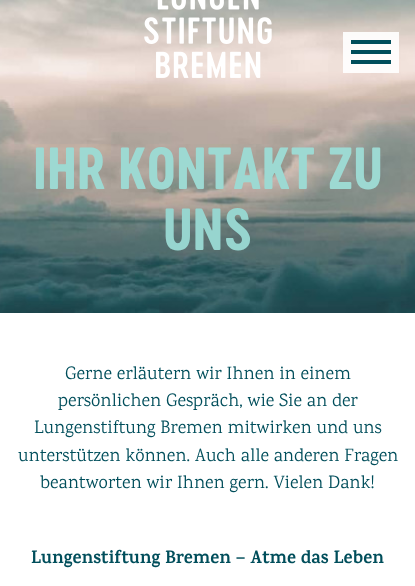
(async () => {
  const canvas = document.querySelector("canvas");
  canvas.width = 415;
  canvas.height = 586;
  const ctx = canvas.getContext("2d");
  ctx.miterLimit = 4;
  ctx.fontKerning = "normal";
  async function loadImage(src) {
    const img = new Image();
    img.src = src;
    await img.decode();
    return img;
  }

  ctx.fillStyle = "#ffffff";
  ctx.fillRect(0, 0, 415, 586);
  ctx.drawImage(await loadImage("img/2.png"), 0, 0, 415, 313);
  ctx.drawImage(await loadImage("img/1.png"), 144, 0, 128, 78);
  for (const [x, y, w, h, color] of [
    [343, 32, 56, 41, "rgba(255, 255, 255, 0.9)"],
    [351, 50, 40, 4, "#004e5b"],
    [351, 40, 40, 4, "#004e5b"],
    [351, 60, 40, 4, "#004e5b"],
  ]) {
    ctx.fillStyle = color;
    ctx.fillRect(x, y, w, h);
  }
  ctx.font = "55.5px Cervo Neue";
  ctx.fillStyle = "#9dd9d2";
  ctx.fillText("IHR KONTAKT ZU", 33, 189);
  ctx.fillStyle = "#97d5cf";
  ctx.fillText("UNS", 163, 250);
  ctx.font = "18.25px Karma";
  ctx.fillStyle = "#004e5b";
  for (const [text, x, y] of [
    ["Gerne erläutern wir Ihnen in einem", 65, 379],
    ["persönlichen Gespräch, wie Sie an der", 58, 406],
    ["Lungenstiftung Bremen mitwirken und uns", 34, 433],
    ["unterstützen können. Auch alle anderen Fragen", 18, 461],
    ["beantworten wir Ihnen gern. Vielen Dank!", 40, 488],
  ]) {
    ctx.fillText(text, x, y);
  }
  ctx.font = "bold 18.1px Karma";
  ctx.fillText("Lungenstiftung Bremen – Atme das Leben", 31, 563);
})();
